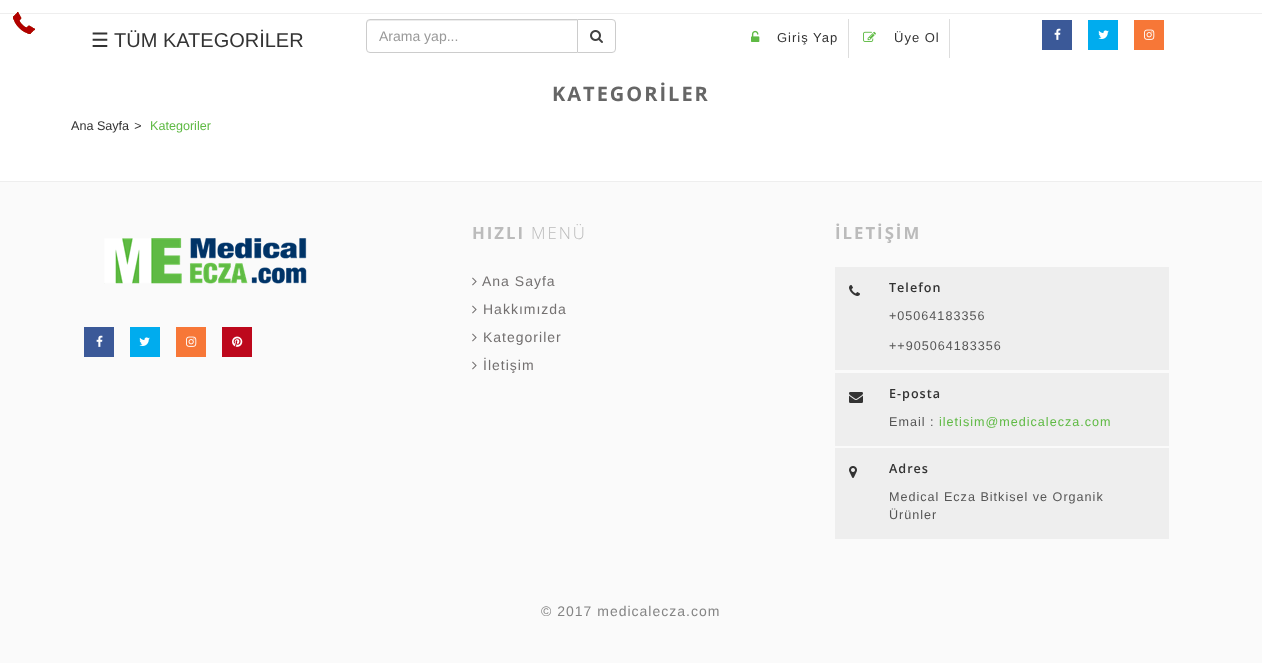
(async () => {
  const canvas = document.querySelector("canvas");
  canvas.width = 1262;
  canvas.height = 663;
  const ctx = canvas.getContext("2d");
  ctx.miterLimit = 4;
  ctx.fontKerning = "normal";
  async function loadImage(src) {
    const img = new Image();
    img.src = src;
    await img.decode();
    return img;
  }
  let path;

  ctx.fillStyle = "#ffffff";
  ctx.fillRect(0, 0, 1262, 663);
  ctx.fillStyle = "#eeeeee";
  ctx.fillRect(0, 13, 1262, 1);
  ctx.drawImage(await loadImage("img/1.png"), 13, 12, 22, 22);
  ctx.beginPath();
  ctx.roundRect(577.5, 19.5, 38, 33, [0, 3.5, 3.5, 0]);
  ctx.strokeStyle = "#cccccc";
  ctx.stroke();
  ctx.fillStyle = "#ffffff";
  ctx.beginPath();
  ctx.roundRect(366, 19, 212, 34, [4, 0, 0, 4]);
  ctx.fill();
  ctx.fillStyle = "#ececec";
  path = new Path2D("M370 21H577V20H370C368 20 367 21 367 23V24C367 22 368 21 370 21Z");
  ctx.fill(path);
  ctx.beginPath();
  ctx.roundRect(366.5, 19.5, 211, 33, [3.5, 0, 0, 3.5]);
  ctx.stroke();
  ctx.drawImage(await loadImage("img/2.png"), 590, 30, 13, 13);
  ctx.fillStyle = "#dddddd";
  ctx.fillRect(848, 19, 1, 39);
  ctx.drawImage(await loadImage("img/3.png"), 751, 30, 9, 12);
  ctx.fillRect(949, 19, 1, 39);
  ctx.drawImage(await loadImage("img/4.png"), 863, 31, 13, 11);
  ctx.fillStyle = "#3b5998";
  ctx.fillRect(1042, 20, 30, 30);
  ctx.drawImage(await loadImage("img/5.png"), 1054, 28, 7, 12);
  ctx.fillStyle = "#00acee";
  ctx.fillRect(1088, 20, 30, 30);
  ctx.drawImage(await loadImage("img/6.png"), 1098, 30, 11, 9);
  ctx.fillStyle = "#f77737";
  ctx.fillRect(1134, 20, 30, 30);
  ctx.drawImage(await loadImage("img/7.png"), 1144, 29, 11, 11);
  ctx.fillStyle = "#fafafa";
  ctx.fillRect(0, 182, 1262, 481);
  ctx.fillStyle = "#eeeeee";
  ctx.fillRect(0, 181, 1262, 1);
  ctx.drawImage(await loadImage("img/8.png"), 104, 238, 203, 46);
  ctx.fillStyle = "#3b5998";
  ctx.fillRect(84, 327, 30, 30);
  ctx.drawImage(await loadImage("img/5.png"), 96, 335, 7, 12);
  ctx.fillStyle = "#00acee";
  ctx.fillRect(130, 327, 30, 30);
  ctx.drawImage(await loadImage("img/6.png"), 139, 337, 11, 9);
  ctx.fillStyle = "#f77737";
  ctx.fillRect(176, 327, 30, 30);
  ctx.drawImage(await loadImage("img/7.png"), 186, 336, 11, 11);
  ctx.fillStyle = "#bd081c";
  ctx.fillRect(222, 327, 30, 30);
  ctx.drawImage(await loadImage("img/9.png"), 232, 336, 11, 11);
  ctx.drawImage(await loadImage("img/10.png"), 472, 277, 5, 9);
  ctx.drawImage(await loadImage("img/10.png"), 472, 305, 5, 9);
  ctx.drawImage(await loadImage("img/10.png"), 472, 333, 5, 9);
  ctx.drawImage(await loadImage("img/10.png"), 472, 361, 5, 9);
  ctx.fillStyle = "#eeeeee";
  ctx.fillRect(835, 267, 334, 103);
  ctx.drawImage(await loadImage("img/11.png"), 849, 285, 11, 11);
  ctx.fillRect(835, 373, 334, 73);
  ctx.drawImage(await loadImage("img/12.png"), 849, 392, 14, 11);
  ctx.fillRect(835, 448, 334, 91);
  ctx.drawImage(await loadImage("img/13.png"), 849, 466, 8, 12);
  ctx.font = "20px DejaVu Sans";
  ctx.fillStyle = "#333333";
  ctx.fillText("☰", 91, 47);
  ctx.font = "20px Liberation Sans";
  ctx.fillText("TÜM KATEGORİLER", 114, 47);
  ctx.font = "14px Liberation Sans";
  ctx.fillStyle = "#999999";
  ctx.fillText("Arama yap...", 379, 41);
  ctx.letterSpacing = "1px";
  ctx.font = "13px Liberation Sans";
  ctx.fillStyle = "#333333";
  ctx.fillText("Giriş Yap", 777, 42);
  ctx.fillText("Üye Ol", 894, 42);
  ctx.letterSpacing = "2px";
  ctx.font = "bold 20px Open Sans";
  ctx.fillStyle = "#666666";
  ctx.fillText("KATEGORİLER", 552, 101);
  ctx.letterSpacing = "0px";
  ctx.font = "12.6px Liberation Sans";
  ctx.fillStyle = "#333333";
  ctx.fillText("Ana Sayfa", 71, 130);
  ctx.font = "italic 12.6px Liberation Sans";
  ctx.fillText(">", 134, 130);
  ctx.font = "12.6px Liberation Sans";
  ctx.fillStyle = "#5fba44";
  ctx.fillText("Kategoriler", 150, 130);
  ctx.letterSpacing = "2px";
  ctx.font = "bold 16.75px Open Sans";
  ctx.fillStyle = "#bbbbbb";
  ctx.fillText("HIZLI", 472, 239);
  ctx.font = "300 16.75px Open Sans";
  ctx.fillText("MENÜ", 531, 239);
  ctx.letterSpacing = "1px";
  ctx.font = "14px Liberation Sans";
  ctx.fillStyle = "#737070";
  for (const [text, x, y] of [
    ["Ana Sayfa", 482, 286],
    ["Hakkımızda", 483, 314],
    ["Kategoriler", 483, 342],
    ["İletişim", 483, 370],
  ]) {
    ctx.fillText(text, x, y);
  }
  ctx.letterSpacing = "2px";
  ctx.font = "bold 16.75px Open Sans";
  ctx.fillStyle = "#bbbbbb";
  ctx.fillText("İLETİŞİM", 835, 239);
  ctx.letterSpacing = "1px";
  ctx.font = "600 12.6px Open Sans";
  ctx.fillStyle = "#333333";
  ctx.fillText("Telefon", 889, 292);
  ctx.font = "12.6px Liberation Sans";
  ctx.fillStyle = "#565656";
  ctx.fillText("+05064183356", 889, 320);
  ctx.fillText("++905064183356", 889, 350);
  ctx.font = "600 12.6px Open Sans";
  ctx.fillStyle = "#333333";
  ctx.fillText("E-posta", 889, 398);
  ctx.font = "12.6px Liberation Sans";
  ctx.fillStyle = "#565656";
  ctx.fillText("Email :", 889, 426);
  ctx.fillStyle = "#5fba44";
  ctx.fillText("iletisim@medicalecza.com", 939, 426);
  ctx.font = "600 12.6px Open Sans";
  ctx.fillStyle = "#333333";
  ctx.fillText("Adres", 889, 473);
  ctx.font = "12.6px Liberation Sans";
  ctx.fillStyle = "#565656";
  ctx.fillText("Medical Ecza Bitkisel ve Organik", 889, 501);
  ctx.fillText("Ürünler", 889, 519);
  ctx.font = "14px Liberation Sans";
  ctx.fillStyle = "#848484";
  ctx.fillText("© 2017 medicalecza.com", 541, 616);
})();
